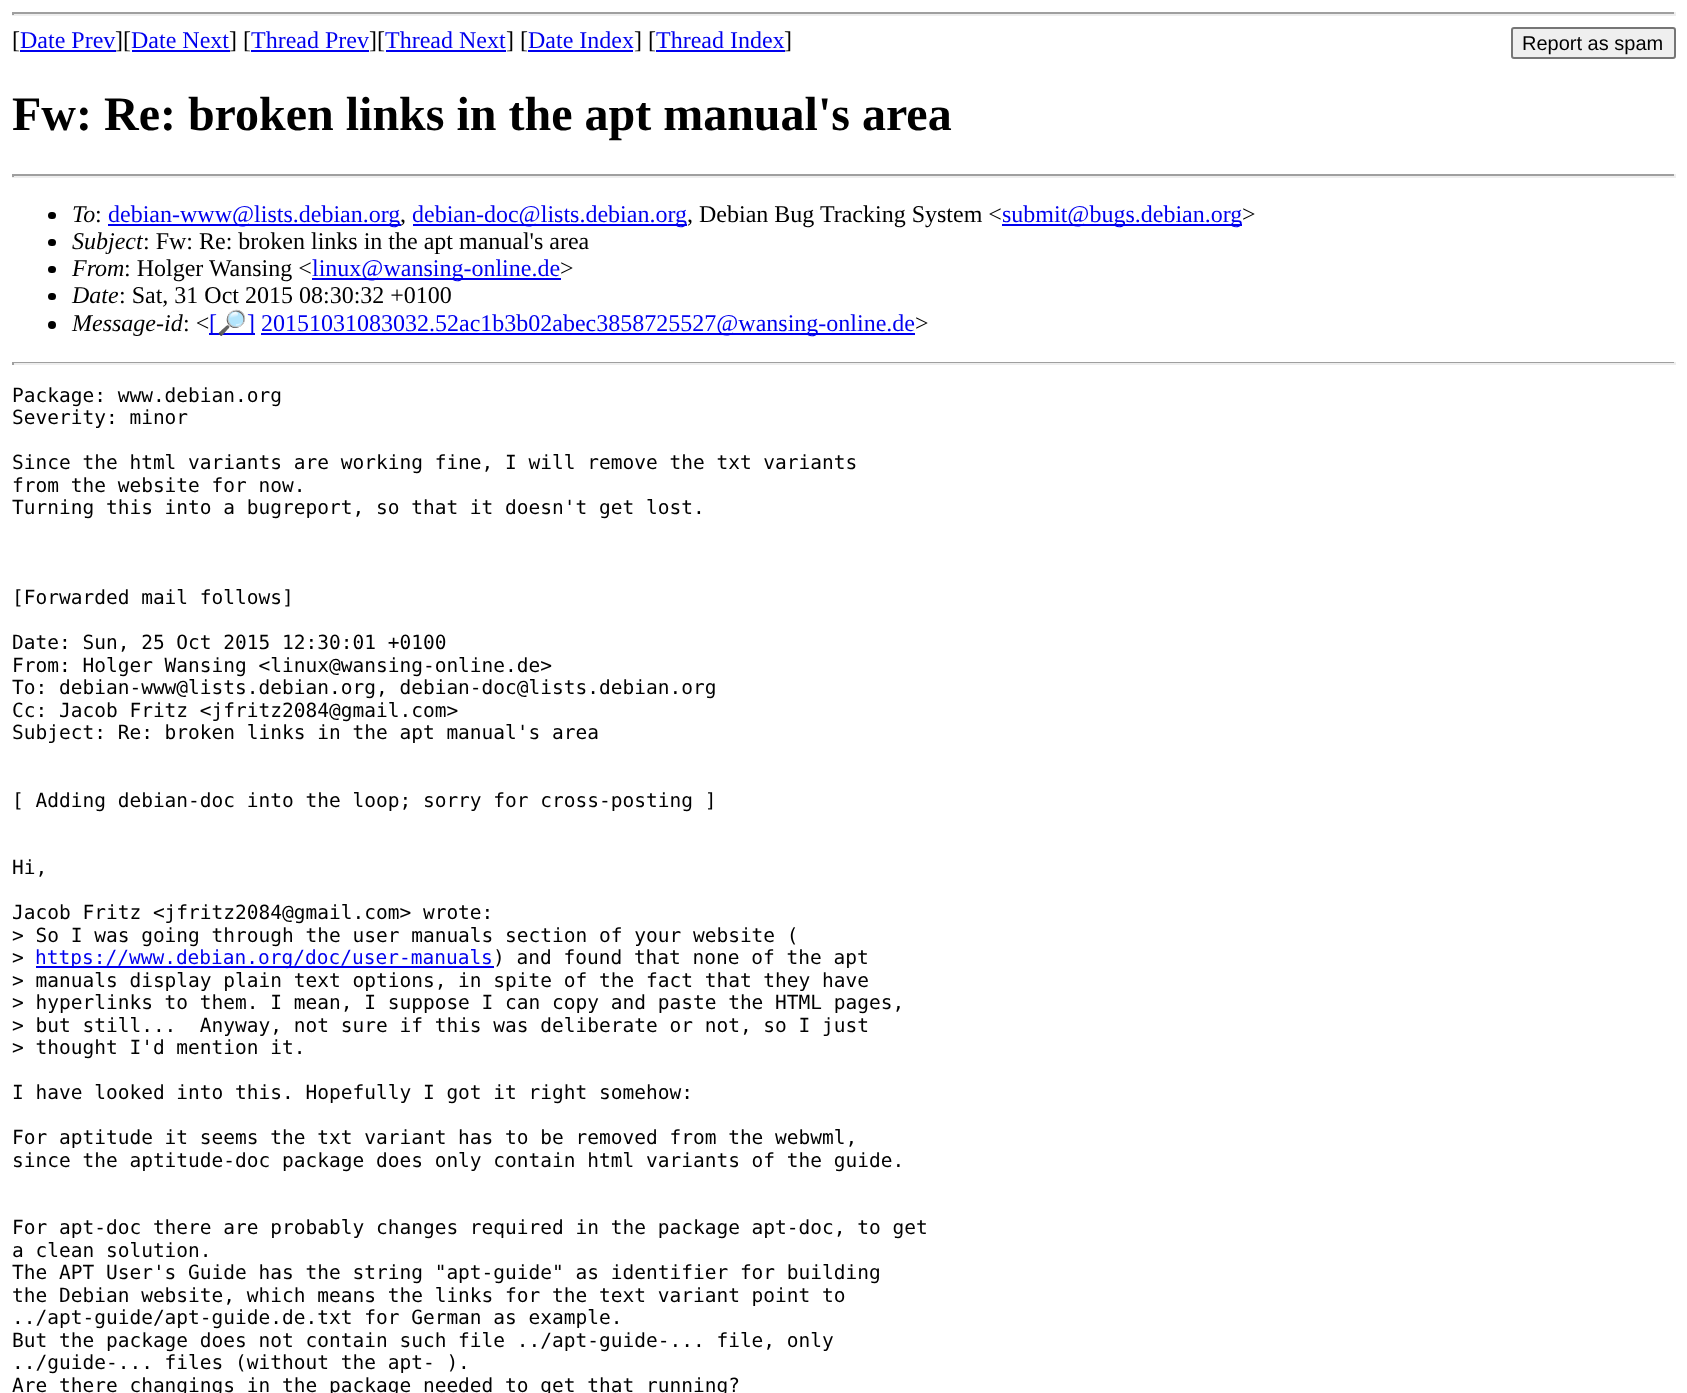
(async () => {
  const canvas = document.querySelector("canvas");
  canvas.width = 1687;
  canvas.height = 1393;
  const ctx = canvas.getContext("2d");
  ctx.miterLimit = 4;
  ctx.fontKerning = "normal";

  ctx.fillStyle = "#ffffff";
  ctx.fillRect(0, 0, 1687, 1393);
  for (const [x, y, w, h, color] of [
    [12, 12, 1664, 2, "#9f9f9f"],
    [1674, 12, 2, 3, "#eeeeee"],
    [12, 14, 1664, 2, "#eeeeee"],
    [12, 12, 2, 3, "#9f9f9f"],
    [20, 50, 96, 2, "#0000ee"],
    [132, 50, 98, 2, "#0000ee"],
    [251, 50, 118, 2, "#0000ee"],
    [386, 50, 120, 2, "#0000ee"],
    [528, 50, 105, 2, "#0000ee"],
    [656, 50, 129, 2, "#0000ee"],
  ]) {
    ctx.fillStyle = color;
    ctx.fillRect(x, y, w, h);
  }
  ctx.fillStyle = "#efefef";
  ctx.beginPath();
  ctx.roundRect(1512, 28, 163, 30, 2);
  ctx.fill();
  ctx.strokeStyle = "#767676";
  ctx.lineWidth = 2;
  ctx.stroke();
  for (const [x, y, w, h, color] of [
    [12, 174, 1664, 2, "#9f9f9f"],
    [1674, 174, 2, 3, "#eeeeee"],
    [12, 176, 1664, 2, "#eeeeee"],
    [12, 174, 2, 3, "#9f9f9f"],
  ]) {
    ctx.fillStyle = color;
    ctx.fillRect(x, y, w, h);
  }
  ctx.fillStyle = "#000000";
  ctx.beginPath();
  ctx.roundRect(48, 212, 8, 7, 3.5);
  ctx.fill();
  for (const [x, y, w, h, color] of [
    [108, 224, 293, 2, "#0000ee"],
    [413, 224, 274, 2, "#0000ee"],
    [1002, 224, 240, 2, "#0000ee"],
  ]) {
    ctx.fillStyle = color;
    ctx.fillRect(x, y, w, h);
  }
  ctx.fillStyle = "#000000";
  ctx.beginPath();
  ctx.roundRect(48, 239, 8, 7, 3.5);
  ctx.fill();
  ctx.beginPath();
  ctx.roundRect(48, 266, 8, 7, 3.5);
  ctx.fill();
  ctx.fillStyle = "#0000ee";
  ctx.fillRect(312, 278, 249, 2);
  ctx.fillStyle = "#000000";
  ctx.beginPath();
  ctx.roundRect(48, 293, 8, 7, 3.5);
  ctx.fill();
  ctx.beginPath();
  ctx.arc(52, 325, 4, 0, Math.PI * 2);
  ctx.fill();
  for (const [x, y, w, h, color] of [
    [209, 333, 46, 2, "#0000ee"],
    [261, 333, 654, 2, "#0000ee"],
    [12, 362, 1664, 1, "#9f9f9f"],
    [1674, 362, 2, 3, "#eeeeee"],
    [12, 363, 1664, 2, "#eeeeee"],
    [12, 362, 2, 3, "#9f9f9f"],
    [36, 966, 458, 2, "#0000ee"],
  ]) {
    ctx.fillStyle = color;
    ctx.fillRect(x, y, w, h);
  }
  ctx.font = "24px Liberation Serif";
  ctx.fillStyle = "#000000";
  ctx.fillText("[", 12, 48);
  ctx.fillStyle = "#0000ee";
  ctx.fillText("Date Prev", 20, 48);
  ctx.fillStyle = "#000000";
  ctx.fillText("][", 115, 48);
  ctx.fillStyle = "#0000ee";
  ctx.fillText("Date Next", 131, 48);
  ctx.fillStyle = "#000000";
  ctx.fillText("] [", 229, 48);
  ctx.fillStyle = "#0000ee";
  ctx.fillText("Thread Prev", 251, 48);
  ctx.fillStyle = "#000000";
  ctx.fillText("][", 369, 48);
  ctx.fillStyle = "#0000ee";
  ctx.fillText("Thread Next", 385, 48);
  ctx.fillStyle = "#000000";
  ctx.fillText("] [", 506, 48);
  ctx.fillStyle = "#0000ee";
  ctx.fillText("Date Index", 528, 48);
  ctx.fillStyle = "#000000";
  ctx.fillText("] [", 634, 48);
  ctx.fillStyle = "#0000ee";
  ctx.fillText("Thread Index", 656, 48);
  ctx.fillStyle = "#000000";
  ctx.fillText("]", 784, 48);
  ctx.font = "20px Liberation Sans";
  ctx.fillText("Report as spam", 1522, 50);
  ctx.font = "bold 48px Liberation Serif";
  ctx.fillText("Fw: Re: broken links in the apt manual's area", 12, 130);
  ctx.font = "italic 24px Liberation Serif";
  ctx.fillText("To", 72, 222);
  ctx.font = "24px Liberation Serif";
  ctx.fillText(":", 95, 222);
  ctx.fillStyle = "#0000ee";
  ctx.fillText("debian-www@lists.debian.org", 108, 222);
  ctx.fillText("debian-doc@lists.debian.org", 412, 222);
  ctx.fillStyle = "#000000";
  ctx.fillText(", Debian Bug Tracking System <", 687, 222);
  ctx.fillStyle = "#0000ee";
  ctx.fillText("submit@bugs.debian.org", 1002, 222);
  ctx.fillStyle = "#000000";
  ctx.fillText(">", 1242, 222);
  ctx.fillText(",", 400, 222);
  ctx.font = "italic 24px Liberation Serif";
  ctx.fillText("Subject", 72, 249);
  ctx.font = "24px Liberation Serif";
  ctx.fillText(": Fw: Re: broken links in the apt manual's area", 143, 249);
  ctx.font = "italic 24px Liberation Serif";
  ctx.fillText("From", 72, 276);
  ctx.font = "24px Liberation Serif";
  ctx.fillText(": Holger Wansing <", 124, 276);
  ctx.fillStyle = "#0000ee";
  ctx.fillText("linux@wansing-online.de", 312, 276);
  ctx.fillStyle = "#000000";
  ctx.fillText(">", 560, 276);
  ctx.font = "italic 24px Liberation Serif";
  ctx.fillText("Date", 72, 303);
  ctx.font = "24px Liberation Serif";
  ctx.fillText(": Sat, 31 Oct 2015 08:30:32 +0100", 119, 303);
  ctx.font = "italic 24px Liberation Serif";
  ctx.fillText("Message-id", 72, 331);
  ctx.font = "24px Liberation Serif";
  ctx.fillText(": <", 183, 331);
  ctx.fillStyle = "#0000ee";
  ctx.fillText("[", 209, 331);
  ctx.font = "24px Noto Color Emoji";
  ctx.fillText("🔎", 217, 331);
  ctx.font = "24px Liberation Serif";
  ctx.fillText("]", 247, 331);
  ctx.fillText("20151031083032.52ac1b3b02abec3858725527@wansing-online.de", 261, 331);
  ctx.fillStyle = "#000000";
  ctx.fillText(">", 915, 331);
  ctx.font = "19.5px DejaVu Sans Mono";
  for (const [text, x, y] of [
    ["Package: www.debian.org", 12, 402],
    ["Severity: minor", 12, 424],
    ["Since the html variants are working fine, I will remove the txt variants", 12, 469],
    ["from the website for now.", 12, 492],
    ["Turning this into a bugreport, so that it doesn't get lost.", 12, 514],
    ["[Forwarded mail follows]", 12, 604],
    ["Date: Sun, 25 Oct 2015 12:30:01 +0100", 12, 649],
    ["From: Holger Wansing <linux@wansing-online.de>", 12, 672],
    ["To: debian-www@lists.debian.org, debian-doc@lists.debian.org", 12, 694],
    ["Cc: Jacob Fritz <jfritz2084@gmail.com>", 12, 717],
    ["Subject: Re: broken links in the apt manual's area", 12, 739],
    ["[ Adding debian-doc into the loop; sorry for cross-posting ]", 12, 807],
    ["Hi,", 12, 874],
    ["Jacob Fritz <jfritz2084@gmail.com> wrote:", 12, 919],
    ["> So I was going through the user manuals section of your website (", 12, 942],
    [">", 12, 964],
  ]) {
    ctx.fillText(text, x, y);
  }
  ctx.fillStyle = "#0000ee";
  ctx.fillText("https://www.debian.org/doc/user-manuals", 35, 964);
  ctx.fillStyle = "#000000";
  for (const [text, x, y] of [
    [") and found that none of the apt", 493, 964],
    ["> manuals display plain text options, in spite of the fact that they have", 12, 987],
    ["> hyperlinks to them. I mean, I suppose I can copy and paste the HTML pages,", 12, 1009],
    ["> but still...  Anyway, not sure if this was deliberate or not, so I just", 12, 1032],
    ["> thought I'd mention it.", 12, 1054],
    ["I have looked into this. Hopefully I got it right somehow:", 12, 1099],
    ["For aptitude it seems the txt variant has to be removed from the webwml,", 12, 1144],
    ["since the aptitude-doc package does only contain html variants of the guide.", 12, 1167],
    ["For apt-doc there are probably changes required in the package apt-doc, to get", 12, 1234],
    ["a clean solution.", 12, 1257],
    ["The APT User's Guide has the string \"apt-guide\" as identifier for building", 12, 1279],
    ["the Debian website, which means the links for the text variant point to", 12, 1302],
    ["../apt-guide/apt-guide.de.txt for German as example.", 12, 1324],
    ["But the package does not contain such file ../apt-guide-... file, only", 12, 1347],
    ["../guide-... files (without the apt- ).", 12, 1369],
    ["Are there changings in the package needed to get that running?", 12, 1392],
  ]) {
    ctx.fillText(text, x, y);
  }
})();
